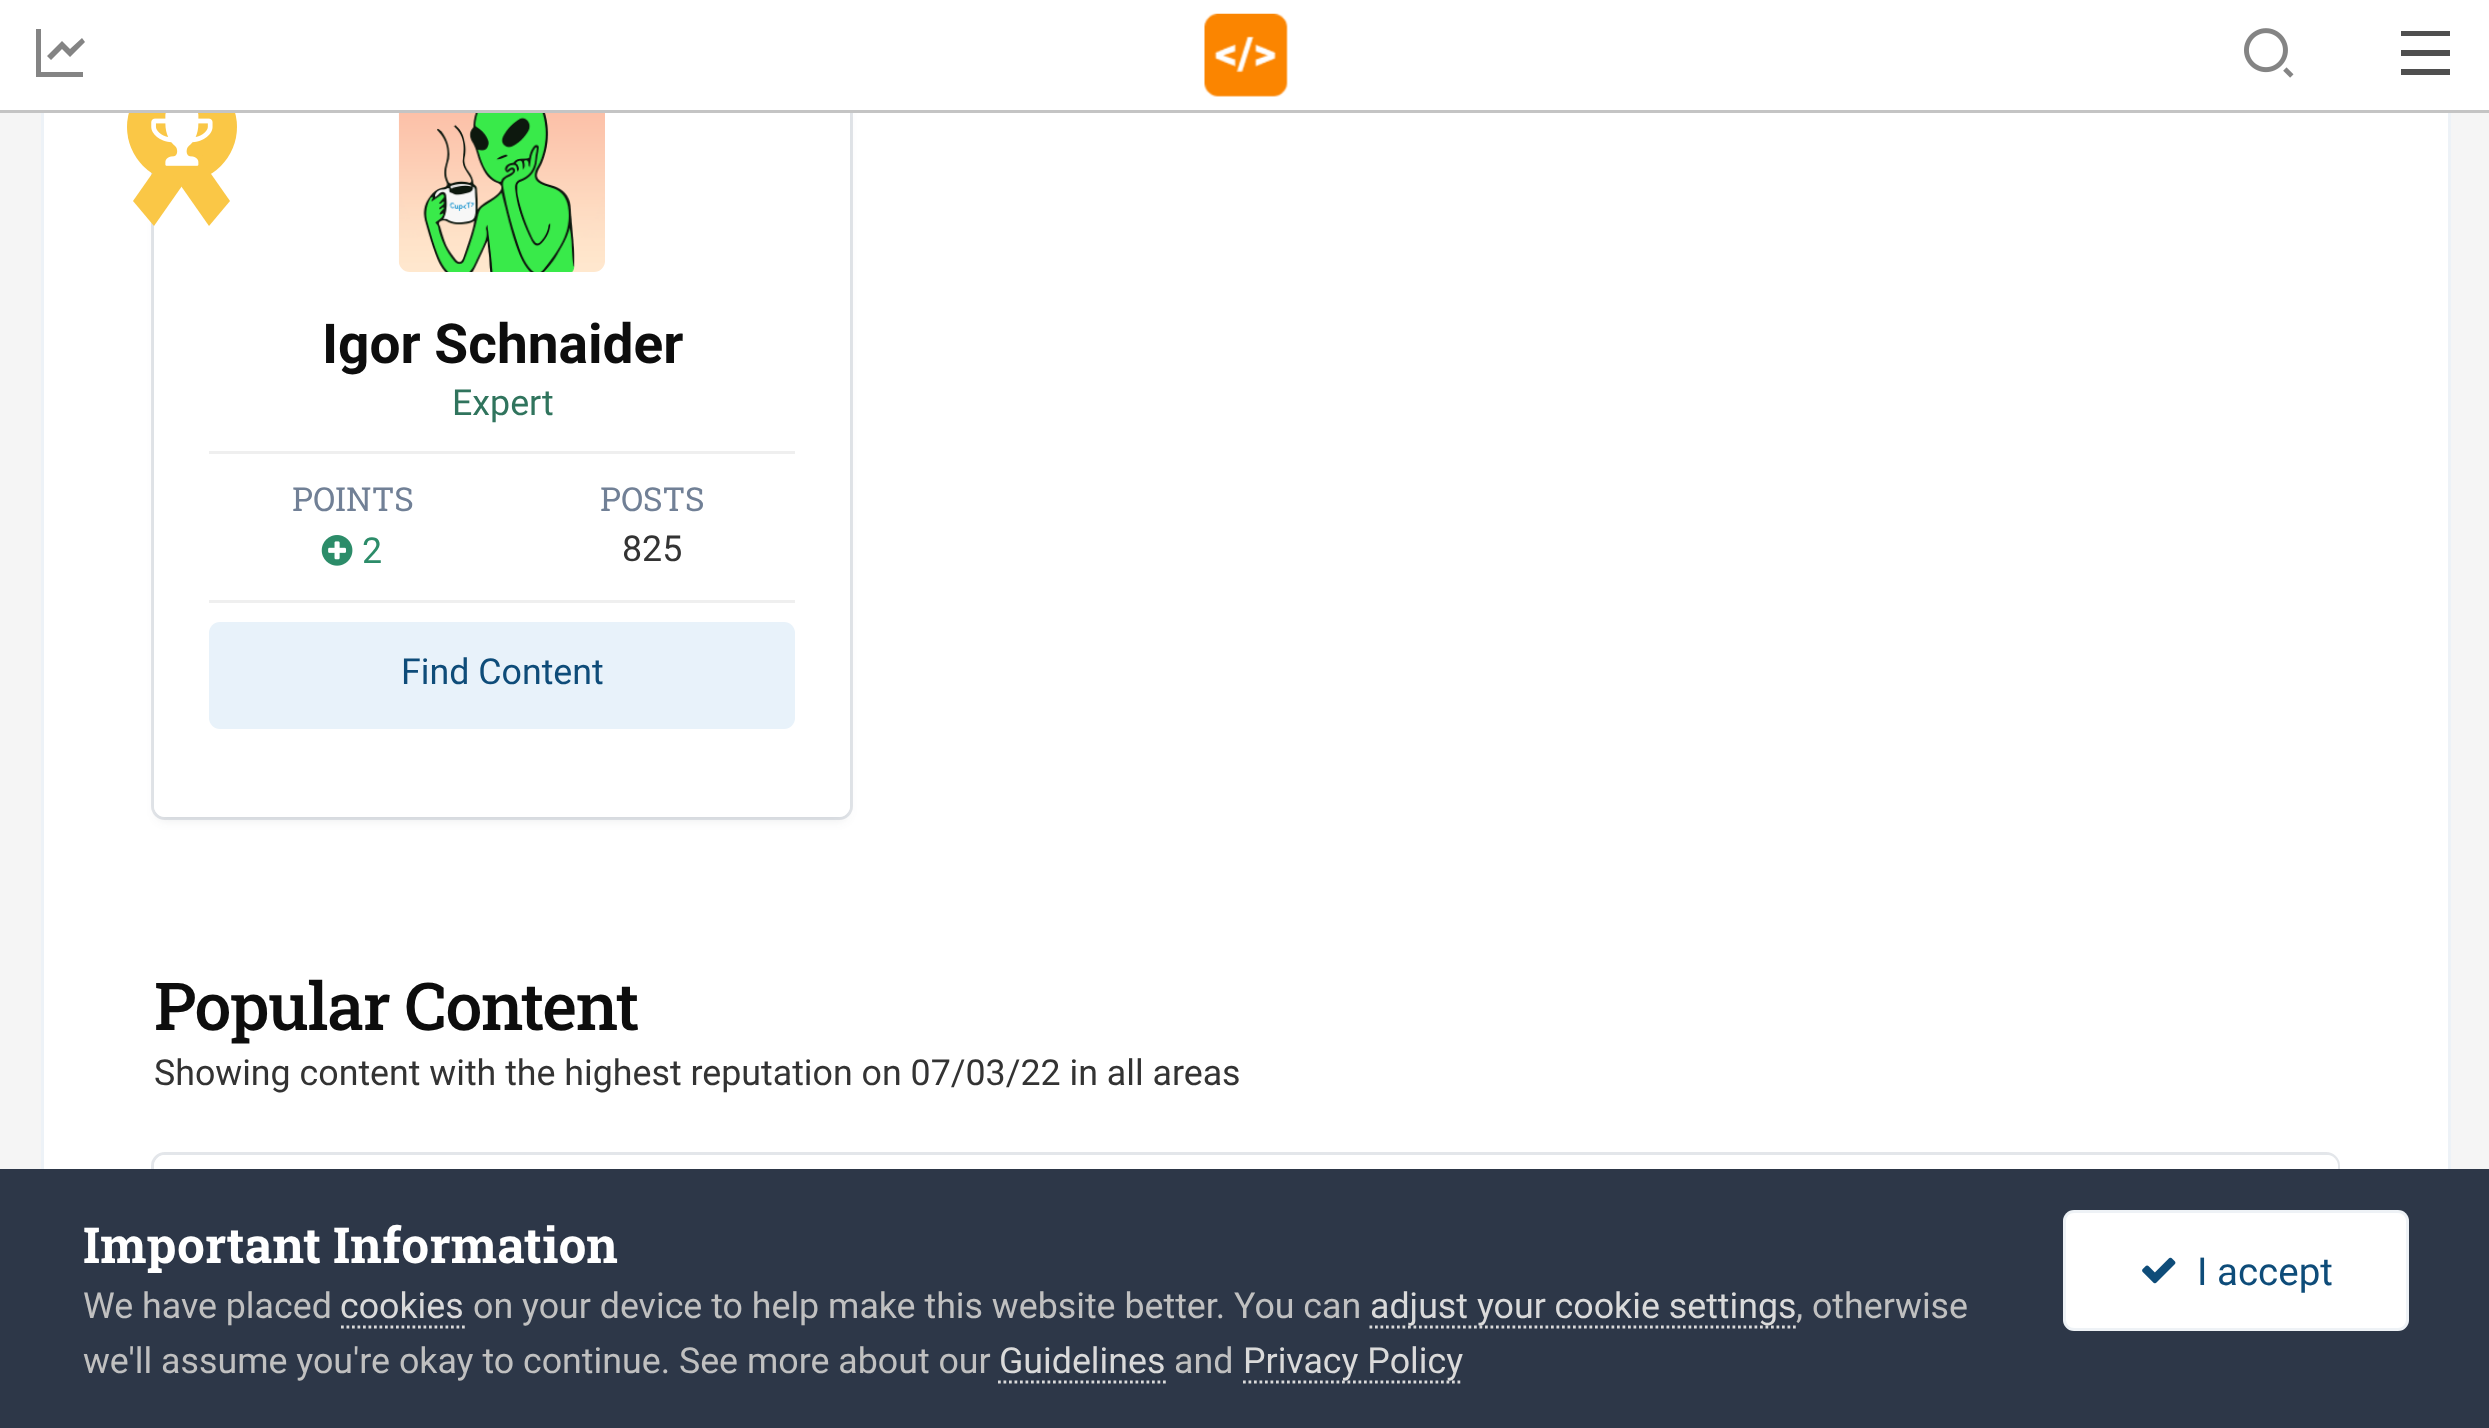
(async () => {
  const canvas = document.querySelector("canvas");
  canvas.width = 2489;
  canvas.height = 1428;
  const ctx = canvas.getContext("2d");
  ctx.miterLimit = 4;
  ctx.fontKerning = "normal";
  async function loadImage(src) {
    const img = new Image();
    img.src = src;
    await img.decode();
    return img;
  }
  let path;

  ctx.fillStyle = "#f5f5f5";
  ctx.fillRect(0, 0, 2489, 1428);
  ctx.fillStyle = "#ffffff";
  ctx.fillRect(44, 113, 2404, 1056);
  ctx.fillStyle = "rgba(45, 55, 72, 0.1)";
  ctx.filter = "blur(5.5px)";
  ctx.beginPath();
  ctx.roundRect(157, 107, 690, 713, 8);
  ctx.fill();
  ctx.filter = "none";
  ctx.beginPath();
  ctx.roundRect(152.5, 97.5, 699, 721, 12.5);
  ctx.strokeStyle = "rgba(113, 128, 150, 0.2)";
  ctx.lineWidth = 3;
  ctx.stroke();
  ctx.fillStyle = "#ffffff";
  ctx.beginPath();
  ctx.roundRect(154, 99, 696, 718, 11);
  ctx.fill();
  ctx.fillStyle = "#fac746";
  ctx.beginPath();
  ctx.arc(182, 127, 55, 0, Math.PI * 2);
  ctx.fill();
  ctx.beginPath();
  ctx.roundRect(392, 59, 220, 220, 18);
  ctx.strokeStyle = "#ffffff";
  ctx.lineWidth = 14;
  ctx.stroke();
  ctx.fillStyle = "#c4c4c4";
  ctx.fillRect(0, 110, 2489, 3);
  ctx.fillStyle = "#ffffff";
  ctx.fillRect(0, 0, 2489, 110);
  ctx.drawImage(await loadImage("img/1.png"), 1204, 13, 84, 84);
  ctx.fillStyle = "#4f4f4f";
  path = new Path2D("M2401 31H2450V36H2401ZM2401 50H2450V56H2401ZM2401 69H2450V75H2401Z");
  ctx.fill(path);
  ctx.fillStyle = "#848484";
  path = new Path2D("M41 29V72H83V77H36V29ZM82 38L85 42L70 57L62 49L51 60L47 56L62 41L70 49Z");
  ctx.fill(path);
  ctx.drawImage(await loadImage("img/2.png"), 2244, 28, 50, 50);
  ctx.fillStyle = "#edf2f7";
  ctx.fillRect(2448, 113, 3, 1056);
  ctx.fillRect(41, 113, 3, 1056);
  ctx.fillStyle = "#fac746";
  path = new Path2D("M182 131L203 156L154 226L133 201Z");
  ctx.fill(path);
  path = new Path2D("M160 156L181 131L230 201L209 226Z");
  ctx.fill(path);
  ctx.drawImage(await loadImage("img/3.png"), 151, 113, 62, 53);
  ctx.drawImage(await loadImage("img/4.png"), 398, 113, 207, 159);
  ctx.fillStyle = "#efefef";
  ctx.fillRect(209, 451, 586, 3);
  ctx.drawImage(await loadImage("img/5.png"), 321, 535, 32, 31);
  ctx.fillRect(209, 600, 586, 3);
  ctx.fillStyle = "#e8f2fa";
  ctx.beginPath();
  ctx.roundRect(209, 622, 586, 107, 11);
  ctx.fill();
  ctx.beginPath();
  ctx.roundRect(152.5, 1153.5, 2186, 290, 12.5);
  ctx.strokeStyle = "rgba(113, 128, 150, 0.2)";
  ctx.lineWidth = 3;
  ctx.stroke();
  ctx.fillStyle = "#ffffff";
  ctx.beginPath();
  ctx.roundRect(154, 1155, 2184, 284, 11);
  ctx.fill();
  ctx.fillStyle = "#2d3748";
  ctx.fillRect(0, 1169, 2489, 259);
  path = new Path2D("M341 1327H465");
  ctx.strokeStyle = "#dadada";
  ctx.lineWidth = 2.8;
  ctx.setLineDash([2.75, 2.75]);
  ctx.stroke(path);
  path = new Path2D("M1369.5 1327H1796");
  ctx.stroke(path);
  path = new Path2D("M998 1382H1166");
  ctx.stroke(path);
  path = new Path2D("M1243 1382H1463");
  ctx.stroke(path);
  ctx.fillStyle = "#ffffff";
  ctx.beginPath();
  ctx.roundRect(2063, 1210, 346, 121, 11);
  ctx.fill();
  ctx.beginPath();
  ctx.roundRect(2064.5, 1211.5, 343, 118, 9.5);
  ctx.strokeStyle = "rgba(14, 76, 121, 0.07)";
  ctx.lineWidth = 3;
  ctx.setLineDash([]);
  ctx.stroke();
  ctx.drawImage(await loadImage("img/6.png"), 2142, 1257, 34, 27);
  ctx.font = "bold 55px Roboto";
  ctx.fillStyle = "#0d0d0d";
  ctx.fillText("Igor Schnaider", 322, 363);
  ctx.font = "35.75px Roboto";
  ctx.fillStyle = "#30745d";
  ctx.fillText("Expert", 452, 415);
  ctx.font = "33px Roboto Slab";
  ctx.fillStyle = "#718096";
  ctx.fillText("POINTS", 292, 511);
  ctx.font = "35.75px Roboto";
  ctx.fillStyle = "#2c8c69";
  ctx.fillText("2", 362, 563);
  ctx.font = "33px Roboto Slab";
  ctx.fillStyle = "#718096";
  ctx.fillText("POSTS", 600, 511);
  ctx.font = "35.75px Roboto";
  ctx.fillStyle = "#333333";
  ctx.fillText("825", 622, 561);
  ctx.fillStyle = "#0e4c79";
  ctx.fillText("Find Content", 401, 684);
  ctx.letterSpacing = "-1.3px";
  ctx.font = "500 66px Roboto Slab";
  ctx.fillStyle = "#0d0d0d";
  ctx.fillText("Popular Content", 154, 1030);
  ctx.letterSpacing = "0px";
  ctx.font = "35.75px Roboto";
  ctx.fillStyle = "#333333";
  ctx.fillText("Showing content with the highest reputation on 07/03/22 in all areas", 154, 1085);
  ctx.font = "bold 49.5px Roboto Slab";
  ctx.fillStyle = "#ffffff";
  ctx.fillText("Important Information", 83, 1263);
  ctx.font = "35.75px Roboto";
  ctx.fillStyle = "#c0c0c0";
  ctx.fillText("We have placed", 83, 1318);
  ctx.fillStyle = "#dadada";
  ctx.fillText("cookies", 340, 1318);
  ctx.fillStyle = "#c0c0c0";
  ctx.fillText("on your device to help make this website better. You can", 473, 1318);
  ctx.fillStyle = "#dadada";
  ctx.fillText("adjust your cookie settings", 1370, 1318);
  ctx.fillStyle = "#c0c0c0";
  ctx.fillText(", otherwise", 1796, 1318);
  ctx.fillText("we'll assume you're okay to continue. See more about our", 83, 1373);
  ctx.fillStyle = "#dadada";
  ctx.fillText("Guidelines", 999, 1373);
  ctx.fillStyle = "#c0c0c0";
  ctx.fillText("and", 1174, 1373);
  ctx.fillStyle = "#dadada";
  ctx.fillText("Privacy Policy", 1243, 1373);
  ctx.font = "38.5px Roboto";
  ctx.fillStyle = "#0e4c79";
  ctx.fillText("I accept", 2197, 1285);
})();
